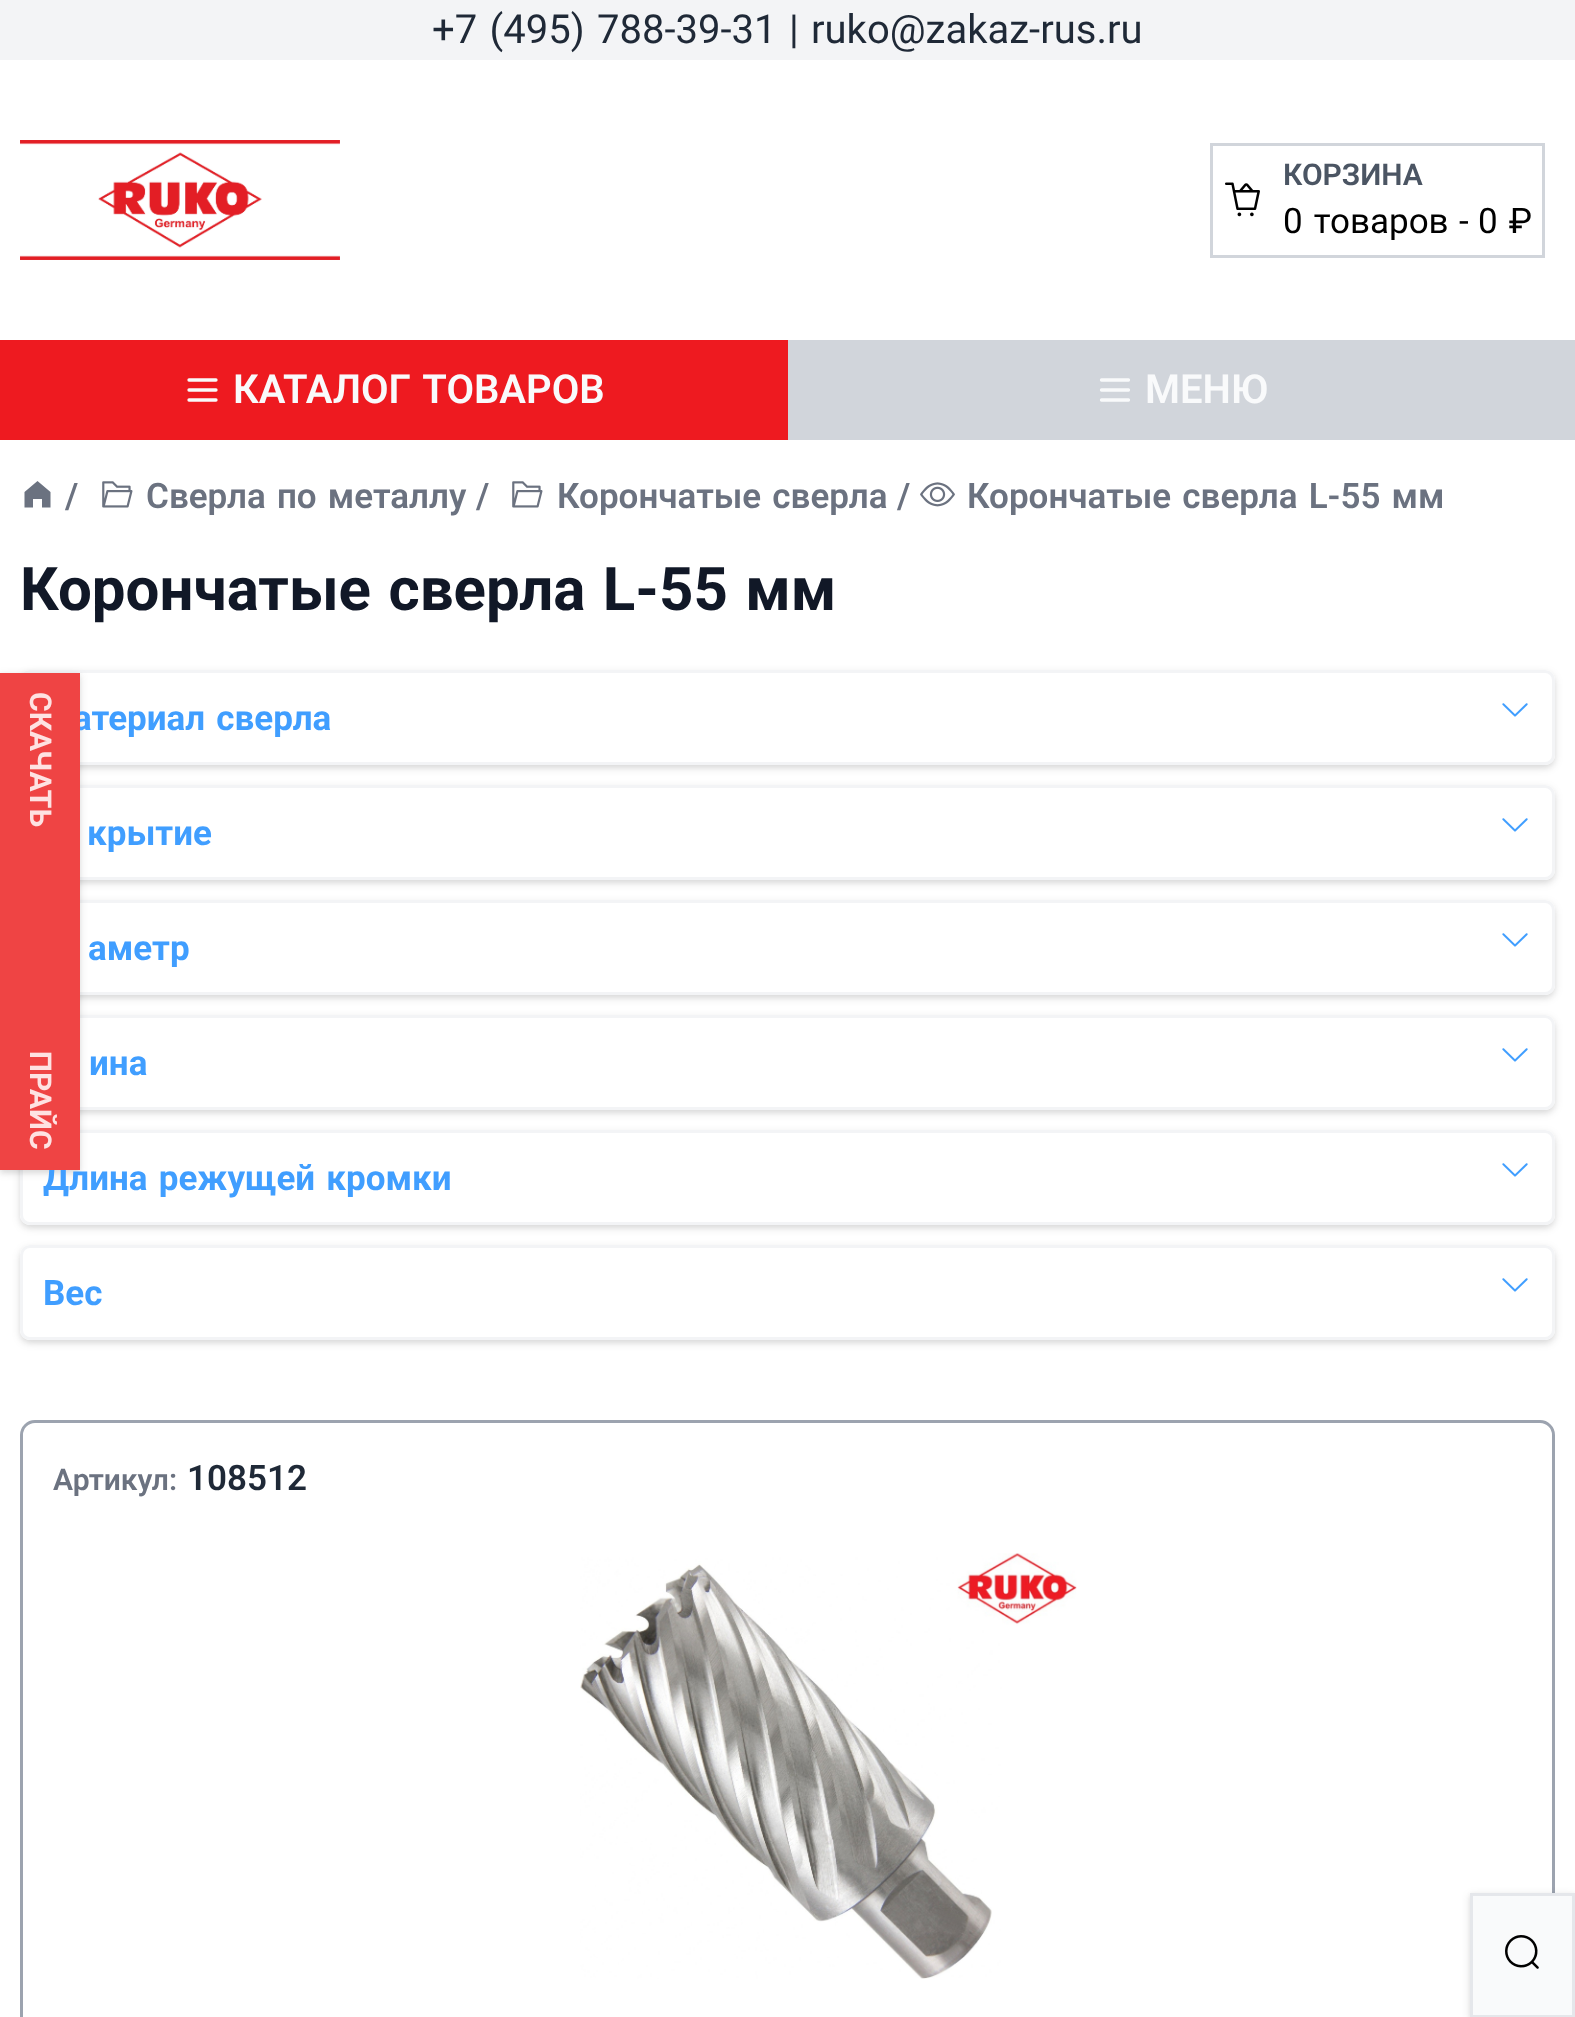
(async () => {
  const canvas = document.querySelector("canvas");
  canvas.width = 1575;
  canvas.height = 2017;
  const ctx = canvas.getContext("2d");
  ctx.miterLimit = 4;
  ctx.fontKerning = "normal";
  async function loadImage(src) {
    const img = new Image();
    img.src = src;
    await img.decode();
    return img;
  }
  let path;

  ctx.fillStyle = "#f3f4f6";
  ctx.fillRect(0, 0, 1575, 2017);
  ctx.fillStyle = "#ffffff";
  ctx.fillRect(0, 60, 1575, 280);
  ctx.drawImage(await loadImage("img/1.png"), 20, 140, 320, 120);
  ctx.strokeStyle = "#d1d5db";
  ctx.lineWidth = 3;
  ctx.strokeRect(1211.5, 144.5, 332, 112);
  ctx.drawImage(await loadImage("img/2.png"), 1225, 182, 35, 35);
  ctx.fillRect(0, 440, 1575, 1577);
  ctx.beginPath();
  ctx.roundRect(21.5, 1421.5, 1532, 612, 13.5);
  ctx.strokeStyle = "#9ca3af";
  ctx.stroke();
  ctx.fillStyle = "rgba(0, 0, 0, 0.06)";
  ctx.filter = "blur(2.5px)";
  ctx.beginPath();
  ctx.rect(1470, 1895, 105, 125);
  ctx.fill();
  ctx.filter = "none";
  ctx.fillStyle = "rgba(0, 0, 0, 0.1)";
  ctx.filter = "blur(4px)";
  ctx.beginPath();
  ctx.rect(1470, 1895, 105, 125);
  ctx.fill();
  ctx.filter = "none";
  ctx.fillStyle = "#f9fafb";
  ctx.beginPath();
  ctx.rect(1471.5, 1894.5, 102, 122);
  ctx.fill();
  ctx.strokeStyle = "#e5e7eb";
  ctx.stroke();
  ctx.drawImage(await loadImage("img/3.png"), 1505, 1935, 34, 34);
  ctx.fillStyle = "#ee1a20";
  ctx.fillRect(0, 340, 788, 100);
  path = new Path2D("M189 380H216M189 390H216M189 400H216");
  ctx.strokeStyle = "#f9fafb";
  ctx.lineWidth = 3.3;
  ctx.lineCap = "round";
  ctx.lineJoin = "round";
  ctx.stroke(path);
  ctx.fillStyle = "#d1d5db";
  ctx.fillRect(788, 340, 787, 100);
  path = new Path2D("M1101.5 380H1128.5M1101.5 390H1128.5M1101.5 400H1128.5");
  ctx.stroke(path);
  ctx.fillStyle = "#6b7280";
  path = new Path2D("M37.5 481L24.5 492V507.5H33V499H42V507.5H50.5V492Z");
  ctx.fill(path);
  ctx.drawImage(await loadImage("img/4.png"), 102, 481, 31, 27);
  ctx.drawImage(await loadImage("img/4.png"), 512, 481, 31, 27);
  ctx.drawImage(await loadImage("img/5.png"), 920, 482, 35, 25);
  ctx.save();
  path = new Path2D("M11 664H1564V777H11ZM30 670H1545C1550.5 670 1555 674.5 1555 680V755C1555 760.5 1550.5 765 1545 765H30C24.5 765 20 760.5 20 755V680C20 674.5 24.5 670 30 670Z");
  ctx.clip(path, "evenodd");
  ctx.fillStyle = "rgba(0, 0, 0, 0.06)";
  ctx.filter = "blur(2.5px)";
  ctx.beginPath();
  ctx.roundRect(20, 673, 1535, 95, 10);
  ctx.fill();
  ctx.filter = "none";
  ctx.restore();
  ctx.save();
  path = new Path2D("M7 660H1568V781H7ZM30 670H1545C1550.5 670 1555 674.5 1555 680V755C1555 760.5 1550.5 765 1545 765H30C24.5 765 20 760.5 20 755V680C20 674.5 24.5 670 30 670Z");
  ctx.clip(path, "evenodd");
  ctx.fillStyle = "rgba(0, 0, 0, 0.1)";
  ctx.filter = "blur(4px)";
  ctx.beginPath();
  ctx.roundRect(20, 673, 1535, 95, 10);
  ctx.fill();
  ctx.filter = "none";
  ctx.restore();
  ctx.beginPath();
  ctx.roundRect(21.5, 671.5, 1532, 92, 8.5);
  ctx.strokeStyle = "#f3f4f6";
  ctx.lineWidth = 3;
  ctx.lineJoin = "miter";
  ctx.stroke();
  ctx.drawImage(await loadImage("img/6.png"), 1502, 703, 26, 14);
  ctx.save();
  path = new Path2D("M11 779H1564V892H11ZM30 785H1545C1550.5 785 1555 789.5 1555 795V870C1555 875.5 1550.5 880 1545 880H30C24.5 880 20 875.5 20 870V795C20 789.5 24.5 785 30 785Z");
  ctx.clip(path, "evenodd");
  ctx.fillStyle = "rgba(0, 0, 0, 0.06)";
  ctx.filter = "blur(2.5px)";
  ctx.beginPath();
  ctx.roundRect(20, 788, 1535, 95, 10);
  ctx.fill();
  ctx.filter = "none";
  ctx.restore();
  ctx.save();
  path = new Path2D("M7 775H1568V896H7ZM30 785H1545C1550.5 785 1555 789.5 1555 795V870C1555 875.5 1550.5 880 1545 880H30C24.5 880 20 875.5 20 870V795C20 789.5 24.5 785 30 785Z");
  ctx.clip(path, "evenodd");
  ctx.fillStyle = "rgba(0, 0, 0, 0.1)";
  ctx.filter = "blur(4px)";
  ctx.beginPath();
  ctx.roundRect(20, 788, 1535, 95, 10);
  ctx.fill();
  ctx.filter = "none";
  ctx.restore();
  ctx.beginPath();
  ctx.roundRect(21.5, 786.5, 1532, 92, 8.5);
  ctx.stroke();
  ctx.drawImage(await loadImage("img/6.png"), 1502, 818, 26, 14);
  ctx.save();
  path = new Path2D("M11 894H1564V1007H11ZM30 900H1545C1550.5 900 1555 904.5 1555 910V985C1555 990.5 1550.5 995 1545 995H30C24.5 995 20 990.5 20 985V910C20 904.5 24.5 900 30 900Z");
  ctx.clip(path, "evenodd");
  ctx.fillStyle = "rgba(0, 0, 0, 0.06)";
  ctx.filter = "blur(2.5px)";
  ctx.beginPath();
  ctx.roundRect(20, 903, 1535, 95, 10);
  ctx.fill();
  ctx.filter = "none";
  ctx.restore();
  ctx.save();
  path = new Path2D("M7 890H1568V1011H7ZM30 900H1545C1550.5 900 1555 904.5 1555 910V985C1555 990.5 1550.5 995 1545 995H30C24.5 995 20 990.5 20 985V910C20 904.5 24.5 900 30 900Z");
  ctx.clip(path, "evenodd");
  ctx.fillStyle = "rgba(0, 0, 0, 0.1)";
  ctx.filter = "blur(4px)";
  ctx.beginPath();
  ctx.roundRect(20, 903, 1535, 95, 10);
  ctx.fill();
  ctx.filter = "none";
  ctx.restore();
  ctx.beginPath();
  ctx.roundRect(21.5, 901.5, 1532, 92, 8.5);
  ctx.stroke();
  ctx.drawImage(await loadImage("img/6.png"), 1502, 933, 26, 14);
  ctx.save();
  path = new Path2D("M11 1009H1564V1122H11ZM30 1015H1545C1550.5 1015 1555 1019.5 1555 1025V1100C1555 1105.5 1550.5 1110 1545 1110H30C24.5 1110 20 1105.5 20 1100V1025C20 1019.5 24.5 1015 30 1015Z");
  ctx.clip(path, "evenodd");
  ctx.fillStyle = "rgba(0, 0, 0, 0.06)";
  ctx.filter = "blur(2.5px)";
  ctx.beginPath();
  ctx.roundRect(20, 1018, 1535, 95, 10);
  ctx.fill();
  ctx.filter = "none";
  ctx.restore();
  ctx.save();
  path = new Path2D("M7 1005H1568V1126H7ZM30 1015H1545C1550.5 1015 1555 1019.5 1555 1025V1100C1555 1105.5 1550.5 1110 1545 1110H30C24.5 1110 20 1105.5 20 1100V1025C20 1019.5 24.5 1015 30 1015Z");
  ctx.clip(path, "evenodd");
  ctx.fillStyle = "rgba(0, 0, 0, 0.1)";
  ctx.filter = "blur(4px)";
  ctx.beginPath();
  ctx.roundRect(20, 1018, 1535, 95, 10);
  ctx.fill();
  ctx.filter = "none";
  ctx.restore();
  ctx.beginPath();
  ctx.roundRect(21.5, 1016.5, 1532, 92, 8.5);
  ctx.stroke();
  ctx.drawImage(await loadImage("img/6.png"), 1502, 1048, 26, 14);
  ctx.save();
  path = new Path2D("M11 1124H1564V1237H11ZM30 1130H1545C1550.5 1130 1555 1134.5 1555 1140V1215C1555 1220.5 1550.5 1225 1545 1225H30C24.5 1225 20 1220.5 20 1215V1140C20 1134.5 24.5 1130 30 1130Z");
  ctx.clip(path, "evenodd");
  ctx.fillStyle = "rgba(0, 0, 0, 0.06)";
  ctx.filter = "blur(2.5px)";
  ctx.beginPath();
  ctx.roundRect(20, 1133, 1535, 95, 10);
  ctx.fill();
  ctx.filter = "none";
  ctx.restore();
  ctx.save();
  path = new Path2D("M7 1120H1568V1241H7ZM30 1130H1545C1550.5 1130 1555 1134.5 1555 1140V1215C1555 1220.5 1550.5 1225 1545 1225H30C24.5 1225 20 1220.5 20 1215V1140C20 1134.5 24.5 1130 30 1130Z");
  ctx.clip(path, "evenodd");
  ctx.fillStyle = "rgba(0, 0, 0, 0.1)";
  ctx.filter = "blur(4px)";
  ctx.beginPath();
  ctx.roundRect(20, 1133, 1535, 95, 10);
  ctx.fill();
  ctx.filter = "none";
  ctx.restore();
  ctx.beginPath();
  ctx.roundRect(21.5, 1131.5, 1532, 92, 8.5);
  ctx.stroke();
  ctx.drawImage(await loadImage("img/6.png"), 1502, 1163, 26, 14);
  ctx.save();
  path = new Path2D("M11 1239H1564V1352H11ZM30 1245H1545C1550.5 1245 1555 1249.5 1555 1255V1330C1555 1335.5 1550.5 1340 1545 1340H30C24.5 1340 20 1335.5 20 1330V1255C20 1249.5 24.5 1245 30 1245Z");
  ctx.clip(path, "evenodd");
  ctx.fillStyle = "rgba(0, 0, 0, 0.06)";
  ctx.filter = "blur(2.5px)";
  ctx.beginPath();
  ctx.roundRect(20, 1248, 1535, 95, 10);
  ctx.fill();
  ctx.filter = "none";
  ctx.restore();
  ctx.save();
  path = new Path2D("M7 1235H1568V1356H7ZM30 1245H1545C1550.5 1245 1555 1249.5 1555 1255V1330C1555 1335.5 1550.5 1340 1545 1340H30C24.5 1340 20 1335.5 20 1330V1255C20 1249.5 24.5 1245 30 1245Z");
  ctx.clip(path, "evenodd");
  ctx.fillStyle = "rgba(0, 0, 0, 0.1)";
  ctx.filter = "blur(4px)";
  ctx.beginPath();
  ctx.roundRect(20, 1248, 1535, 95, 10);
  ctx.fill();
  ctx.filter = "none";
  ctx.restore();
  ctx.beginPath();
  ctx.roundRect(21.5, 1246.5, 1532, 92, 8.5);
  ctx.stroke();
  ctx.drawImage(await loadImage("img/6.png"), 1502, 1278, 26, 14);
  ctx.drawImage(await loadImage("img/7.png"), 580, 1553, 497, 426);
  ctx.fillStyle = "rgba(0, 0, 0, 0.06)";
  ctx.filter = "blur(2.5px)";
  ctx.beginPath();
  ctx.rect(0, 675, 80, 498);
  ctx.fill();
  ctx.filter = "none";
  ctx.fillStyle = "rgba(0, 0, 0, 0.1)";
  ctx.filter = "blur(4px)";
  ctx.beginPath();
  ctx.rect(0, 675, 80, 498);
  ctx.fill();
  ctx.filter = "none";
  ctx.wordSpacing = "2.5px";
  ctx.font = "40px Roboto";
  ctx.fillStyle = "#1f2937";
  ctx.fillText("+7 (495) 788-39-31", 432, 43);
  ctx.wordSpacing = "0px";
  ctx.fillText("|", 789, 43);
  ctx.fillText("ruko@zakaz-rus.ru", 811, 43);
  ctx.font = "600 30px Roboto";
  ctx.fillStyle = "#4b5563";
  ctx.fillText("КОРЗИНА", 1283, 185);
  ctx.wordSpacing = "2.5px";
  ctx.font = "35px Roboto";
  ctx.fillStyle = "#000000";
  ctx.fillText("0 товаров", 1283, 233);
  ctx.wordSpacing = "0px";
  ctx.fillText("-", 1459, 233);
  ctx.wordSpacing = "2.5px";
  ctx.fillText("0 ₽", 1478, 233);
  ctx.font = "600 40px Roboto";
  ctx.fillStyle = "#f9fafb";
  ctx.fillText("КАТАЛОГ ТОВАРОВ", 233, 403);
  ctx.wordSpacing = "0px";
  ctx.fillText("МЕНЮ", 1145, 403);
  ctx.font = "600 35px Roboto";
  ctx.fillStyle = "#6b7280";
  ctx.fillText("/", 65, 508);
  ctx.wordSpacing = "2.5px";
  ctx.fillText("Сверла по металлу", 146, 508);
  ctx.wordSpacing = "0px";
  ctx.fillText("/", 476, 508);
  ctx.wordSpacing = "2.5px";
  ctx.fillText("Корончатые сверла", 557, 508);
  ctx.wordSpacing = "0px";
  ctx.fillText("/", 897, 508);
  ctx.wordSpacing = "2.5px";
  ctx.fillText("Корончатые сверла L-55 мм", 967, 508);
  ctx.font = "bold 60px Roboto";
  ctx.fillStyle = "#111827";
  ctx.fillText("Корончатые сверла L-55 мм", 20, 610);
  ctx.font = "bold 35px Roboto";
  ctx.fillStyle = "#409eff";
  ctx.fillText("атериал сверла", 73, 730);
  ctx.wordSpacing = "0px";
  for (const [text, x, y] of [
    ["крытие", 87, 845],
    ["аметр", 88, 960],
    ["ина", 89, 1075],
  ]) {
    ctx.fillText(text, x, y);
  }
  ctx.wordSpacing = "2.5px";
  ctx.fillText("Длина режущей кромки", 43, 1190);
  ctx.wordSpacing = "0px";
  ctx.fillText("Вес", 43, 1305);
  ctx.font = "600 30px Roboto";
  ctx.fillStyle = "#6b7280";
  ctx.fillText("Артикул:", 53, 1490);
  ctx.font = "600 35px Roboto";
  ctx.fillStyle = "#1f2937";
  ctx.fillText("108512", 187, 1490);
  ctx.fillStyle = "#ef4444";
  ctx.fillRect(0, 673, 80, 497);
  ctx.wordSpacing = "216px";
  ctx.font = "bold 30px Roboto";
  ctx.fillStyle = "#fee2e2";
  ctx.save();
  ctx.translate(30, 692);
  ctx.rotate(90 * Math.PI / 180);
  ctx.fillText("СКАЧАТЬ ПРАЙС", 0, 0);
  ctx.restore();
})();
